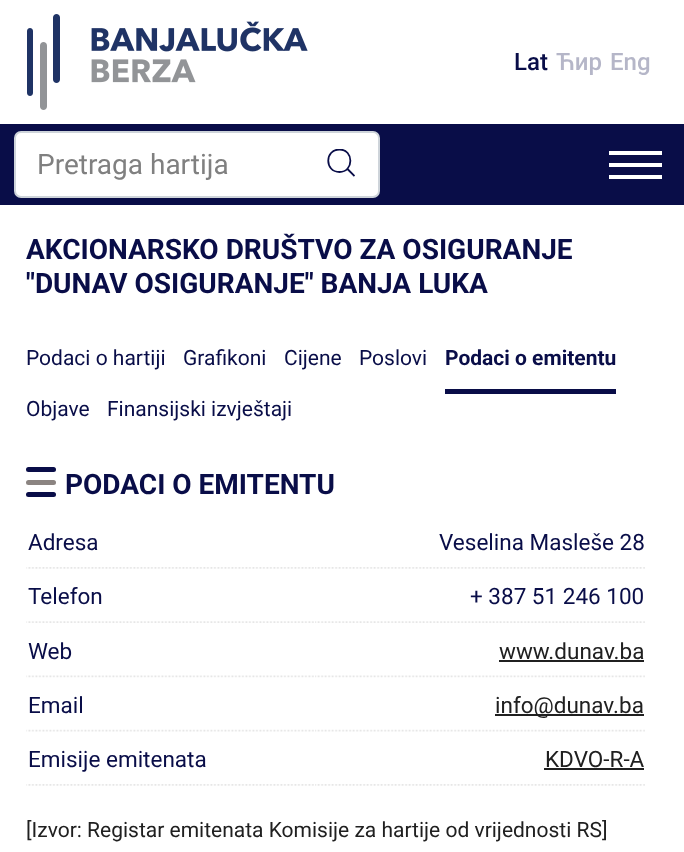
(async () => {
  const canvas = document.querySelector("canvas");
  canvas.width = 684;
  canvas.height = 852;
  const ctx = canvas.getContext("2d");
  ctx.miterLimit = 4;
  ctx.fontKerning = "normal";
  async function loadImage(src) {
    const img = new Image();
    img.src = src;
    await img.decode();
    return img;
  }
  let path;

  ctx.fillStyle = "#ffffff";
  ctx.fillRect(0, 0, 684, 852);
  ctx.drawImage(await loadImage("img/1.png"), 27, 14, 281, 96);
  ctx.fillStyle = "#090d48";
  ctx.fillRect(0, 124, 684, 81);
  ctx.fillStyle = "#ffffff";
  ctx.beginPath();
  ctx.roundRect(15, 132, 364, 65, 6);
  ctx.fill();
  ctx.strokeStyle = "#ced4da";
  ctx.lineWidth = 2;
  ctx.stroke();
  ctx.save();
  ctx.beginPath();
  ctx.rect(327, 149, 28, 28);
  ctx.clip();
  path = new Path2D("M354.5 176L347 168.5M339.5 172C324.5 172 324.5 149.5 339.5 149.5C354 149.5 354 172 339.5 172Z");
  ctx.strokeStyle = "#090d48";
  ctx.lineWidth = 1.8;
  ctx.stroke(path);
  ctx.restore();
  for (const [x, y, w, h, color] of [
    [609, 163, 53, 4, "#ffffff"],
    [609, 151, 53, 4, "#ffffff"],
    [609, 175, 53, 4, "#ffffff"],
    [445, 389, 171, 5, "#090d48"],
  ]) {
    ctx.fillStyle = color;
    ctx.fillRect(x, y, w, h);
  }
  ctx.beginPath();
  ctx.roundRect(26, 467, 30, 5, 2.5);
  ctx.fill();
  ctx.beginPath();
  ctx.roundRect(26, 492, 30, 5, 2.5);
  ctx.fill();
  ctx.fillStyle = "#8b8481";
  ctx.beginPath();
  ctx.roundRect(26, 480, 30, 5, 2.5);
  ctx.fill();
  ctx.drawImage(await loadImage("img/2.png"), 26, 567, 288, 2);
  ctx.drawImage(await loadImage("img/3.png"), 315, 567, 330, 2);
  ctx.drawImage(await loadImage("img/4.png"), 26, 621, 288, 2);
  ctx.drawImage(await loadImage("img/5.png"), 315, 621, 330, 2);
  ctx.drawImage(await loadImage("img/6.png"), 26, 675, 288, 3);
  ctx.drawImage(await loadImage("img/7.png"), 315, 675, 330, 3);
  ctx.fillStyle = "#202020";
  ctx.fillRect(499, 660, 145, 2);
  ctx.drawImage(await loadImage("img/8.png"), 26, 729, 288, 3);
  ctx.drawImage(await loadImage("img/9.png"), 315, 729, 330, 3);
  ctx.fillRect(495, 714, 149, 2);
  ctx.drawImage(await loadImage("img/2.png"), 26, 784, 288, 2);
  ctx.drawImage(await loadImage("img/3.png"), 315, 784, 330, 2);
  ctx.fillRect(544, 768, 100, 2);
  ctx.font = "500 24px Roboto";
  ctx.fillStyle = "#090d48";
  ctx.fillText("Lat", 514, 70);
  ctx.fillStyle = "#b5b6c8";
  ctx.fillText("Ћир", 556, 70);
  ctx.fillText("Eng", 610, 70);
  ctx.font = "28px Roboto";
  ctx.fillStyle = "#808080";
  ctx.fillText("Pretraga hartija", 37, 174);
  ctx.font = "bold 28px Roboto";
  ctx.fillStyle = "#090d48";
  ctx.fillText("AKCIONARSKO DRUŠTVO ZA OSIGURANJE", 26, 259);
  ctx.fillText("\"DUNAV OSIGURANJE\" BANJA LUKA", 26, 293);
  ctx.font = "21px Roboto";
  for (const [text, x, y] of [
    ["Podaci o hartiji", 26, 365],
    ["Grafikoni", 183, 365],
    ["Cijene", 284, 365],
    ["Poslovi", 359, 365],
  ]) {
    ctx.fillText(text, x, y);
  }
  ctx.font = "bold 21px Roboto";
  ctx.fillText("Podaci o emitentu", 445, 365);
  ctx.font = "21px Roboto";
  ctx.fillText("Objave", 26, 416);
  ctx.fillText("Finansijski izvještaji", 107, 416);
  ctx.font = "bold 28px Roboto";
  ctx.fillText("PODACI O EMITENTU", 65, 494);
  ctx.font = "22.5px Roboto";
  for (const [text, x, y] of [
    ["Adresa", 28, 550],
    ["Veselina Masleše 28", 439, 550],
    ["Telefon", 28, 604],
    ["+ 387 51 246 100", 470, 604],
    ["Web", 28, 659],
  ]) {
    ctx.fillText(text, x, y);
  }
  ctx.fillStyle = "#202020";
  ctx.fillText("www.dunav.ba", 499, 659);
  ctx.fillStyle = "#090d48";
  ctx.fillText("Email", 28, 713);
  ctx.fillStyle = "#202020";
  ctx.fillText("info@dunav.ba", 495, 713);
  ctx.fillStyle = "#090d48";
  ctx.fillText("Emisije emitenata", 28, 767);
  ctx.fillStyle = "#202020";
  ctx.fillText("KDVO-R-A", 545, 767);
  ctx.font = "21px Roboto";
  ctx.fillText("[Izvor: Registar emitenata Komisije za hartije od vrijednosti RS]", 26, 837);
})();
